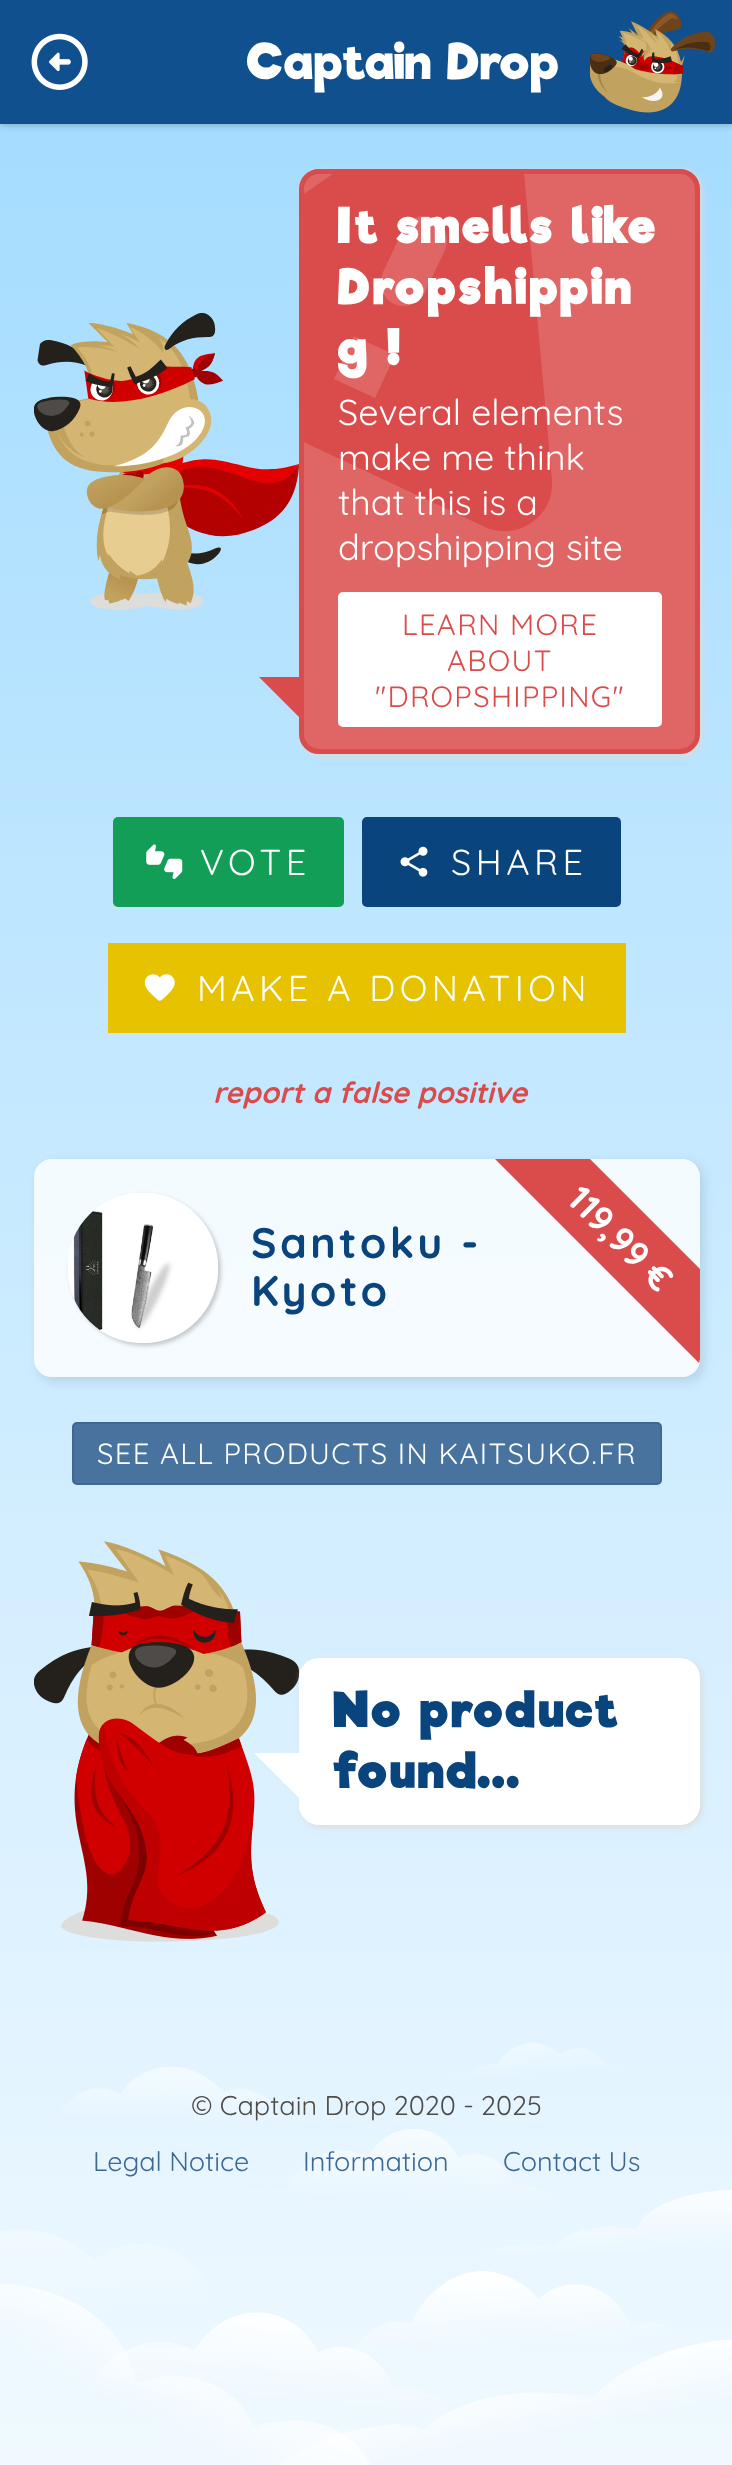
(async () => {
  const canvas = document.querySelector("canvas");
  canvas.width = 732;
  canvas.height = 2465;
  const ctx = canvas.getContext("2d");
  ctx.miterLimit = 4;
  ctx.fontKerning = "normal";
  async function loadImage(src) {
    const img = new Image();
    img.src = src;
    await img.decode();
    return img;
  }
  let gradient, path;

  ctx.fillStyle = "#ffffff";
  ctx.fillRect(0, 0, 732, 2465);
  gradient = ctx.createLinearGradient(367, 0, 367, 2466);
  gradient.addColorStop(0, "#a1dbff");
  gradient.addColorStop(0.53, "#cbebff");
  gradient.addColorStop(1, "#f0f9ff");
  ctx.fillStyle = gradient;
  ctx.fillRect(0, 124, 732, 2341);
  ctx.fillStyle = "rgba(0, 0, 0, 0.3)";
  ctx.filter = "blur(4.5px)";
  ctx.beginPath();
  ctx.rect(0, -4, 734, 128);
  ctx.fill();
  ctx.filter = "none";
  ctx.fillStyle = "#11508e";
  ctx.fillRect(0, 0, 732, 124);
  ctx.drawImage(await loadImage("img/1.png"), 31, 33, 57, 57);
  ctx.drawImage(await loadImage("img/2.png"), 590, 11, 126, 102);
  ctx.drawImage(await loadImage("img/3.png"), 0, 2042, 732, 423);
  ctx.drawImage(await loadImage("img/4.png"), 34, 313, 265, 297);
  ctx.fillStyle = "#dadada";
  ctx.filter = "blur(3.5px)";
  ctx.beginPath();
  ctx.roundRect(302, 171, 400, 585, 20);
  ctx.fill();
  ctx.filter = "none";
  ctx.fillStyle = "#e06666";
  ctx.beginPath();
  ctx.roundRect(301.5, 171.5, 396, 580, 17.5);
  ctx.fill();
  ctx.strokeStyle = "#da4b4b";
  ctx.lineWidth = 5;
  ctx.stroke();
  ctx.save();
  ctx.beginPath();
  ctx.rect(304, 173, 391, 576);
  ctx.clip();
  ctx.fillStyle = "#da4b4b";
  path = new Path2D("M165 377L485 527C517 542 555 516 552 480L520 129C517 93 477 74 447 94L157 297C128 317 133 363 165 377ZM394 304C382 298 378 284 383 272L403 230C408 218 422 213 434 218C446 224 450 238 445 250L425 292C420 304 406 309 394 304ZM375 398L334 379L354 336L395 355Z");
  ctx.fill(path);
  ctx.restore();
  ctx.fillStyle = "#da4b4b";
  path = new Path2D("M304 677V722L259 677Z");
  ctx.fill(path);
  ctx.fillStyle = "#ffffff";
  ctx.beginPath();
  ctx.roundRect(339, 593, 322, 133, 4);
  ctx.fill();
  ctx.strokeStyle = "#ffffff";
  ctx.lineWidth = 2;
  ctx.stroke();
  ctx.fillStyle = "#139e58";
  ctx.beginPath();
  ctx.roundRect(113, 817, 231, 90, 5);
  ctx.fill();
  ctx.drawImage(await loadImage("img/5.png"), 146, 844, 37, 35);
  ctx.fillStyle = "#0a447d";
  ctx.beginPath();
  ctx.roundRect(362, 817, 259, 90, 5);
  ctx.fill();
  ctx.drawImage(await loadImage("img/6.png"), 400, 846, 28, 31);
  ctx.fillStyle = "#e6c200";
  ctx.fillRect(108, 943, 518, 90);
  ctx.drawImage(await loadImage("img/7.png"), 144, 974, 31, 27);
  ctx.save();
  path = new Path2D("M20 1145H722V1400H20ZM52 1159H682C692 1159 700 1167 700 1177V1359C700 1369 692 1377 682 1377H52C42 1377 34 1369 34 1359V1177C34 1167 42 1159 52 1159Z");
  ctx.clip(path, "evenodd");
  ctx.fillStyle = "rgba(0, 0, 0, 0.1)";
  ctx.filter = "blur(5.5px)";
  ctx.beginPath();
  ctx.roundRect(38, 1163, 666, 219, 18);
  ctx.fill();
  ctx.filter = "none";
  ctx.restore();
  ctx.fillStyle = "rgba(255, 255, 255, 0.8)";
  ctx.beginPath();
  ctx.roundRect(34, 1159, 666, 218, 18);
  ctx.fill();
  ctx.fillStyle = "rgba(0, 0, 0, 0.2)";
  ctx.filter = "blur(2px)";
  ctx.beginPath();
  ctx.roundRect(70, 1195, 151, 151, 75.5);
  ctx.fill();
  ctx.filter = "none";
  ctx.drawImage(await loadImage("img/8.png"), 68, 1193, 150, 150);
  ctx.fillStyle = "#da4b4b";
  path = new Path2D("M699 1363L495 1159H590L700 1269V1359Z");
  ctx.fill(path);
  ctx.fillStyle = "#47739e";
  ctx.beginPath();
  ctx.roundRect(73, 1423, 588, 61, 4);
  ctx.fill();
  ctx.strokeStyle = "#3c6892";
  ctx.stroke();
  ctx.drawImage(await loadImage("img/9.png"), 34, 1541, 265, 401);
  ctx.fillStyle = "#dadada";
  ctx.filter = "blur(3.5px)";
  ctx.beginPath();
  ctx.roundRect(302, 1661, 400, 166, 20);
  ctx.fill();
  ctx.filter = "none";
  ctx.fillStyle = "#ffffff";
  ctx.beginPath();
  ctx.roundRect(299, 1658, 401, 167, 20);
  ctx.fill();
  path = new Path2D("M299 1753V1798L254 1753Z");
  ctx.fill(path);
  ctx.font = "49.5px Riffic";
  ctx.fillText("Captain Drop", 247, 79);
  ctx.letterSpacing = "3.4px";
  ctx.font = "bold 47.25px Riffic";
  for (const [text, x, y] of [
    ["It smells like", 338, 243],
    ["Dropshippin", 338, 304],
    ["g !", 338, 365],
  ]) {
    ctx.fillText(text, x, y);
  }
  ctx.letterSpacing = "0px";
  ctx.font = "36px Quicksand";
  for (const [text, x, y] of [
    ["Several elements", 338, 425],
    ["make me think", 338, 470],
    ["that this is a", 338, 515],
    ["dropshipping site", 338, 560],
  ]) {
    ctx.fillText(text, x, y);
  }
  ctx.letterSpacing = "1.35px";
  ctx.font = "29.25px Quicksand";
  ctx.fillStyle = "#da4b4b";
  for (const [text, x, y] of [
    ["LEARN MORE", 402, 635],
    ["ABOUT", 447, 671],
    ["\"DROPSHIPPING\"", 375, 707],
  ]) {
    ctx.fillText(text, x, y);
  }
  ctx.letterSpacing = "4.5px";
  ctx.font = "36px Quicksand";
  ctx.fillStyle = "#ffffff";
  for (const [text, x, y] of [
    ["VOTE", 200, 875],
    ["SHARE", 451, 875],
    ["MAKE A DONATION", 197, 1001],
  ]) {
    ctx.fillText(text, x, y);
  }
  ctx.letterSpacing = "0px";
  ctx.font = "italic bold 29.25px Quicksand";
  ctx.fillStyle = "#da4b4b";
  ctx.fillText("report a false positive", 213, 1103);
  ctx.letterSpacing = "3.4px";
  ctx.font = "bold 42.75px Quicksand";
  ctx.fillStyle = "#0a447d";
  ctx.fillText("Santoku -", 251, 1258);
  ctx.fillText("Kyoto", 251, 1306);
  ctx.letterSpacing = "0px";
  ctx.font = "bold 36px Quicksand";
  ctx.fillStyle = "#ffffff";
  ctx.save();
  ctx.translate(565, 1201);
  ctx.rotate(45 * Math.PI / 180);
  ctx.fillText("119,99 €", 0, 0);
  ctx.restore();
  ctx.letterSpacing = "1.35px";
  ctx.font = "29.25px Quicksand";
  ctx.fillText("SEE ALL PRODUCTS IN KAITSUKO.FR", 97, 1464);
  ctx.letterSpacing = "3.4px";
  ctx.font = "bold 47.25px Riffic";
  ctx.fillStyle = "#0a447d";
  ctx.fillText("No product", 334, 1727);
  ctx.fillText("found...", 334, 1788);
  ctx.letterSpacing = "0px";
  ctx.font = "27px Quicksand";
  ctx.fillStyle = "#4e4b49";
  ctx.fillText("© Captain Drop 2020 - 2025", 191, 2115);
  ctx.fillStyle = "#3c6892";
  for (const [text, x, y] of [
    ["Legal Notice", 93, 2171],
    ["Information", 303, 2171],
    ["Contact Us", 503, 2171],
  ]) {
    ctx.fillText(text, x, y);
  }
})();
